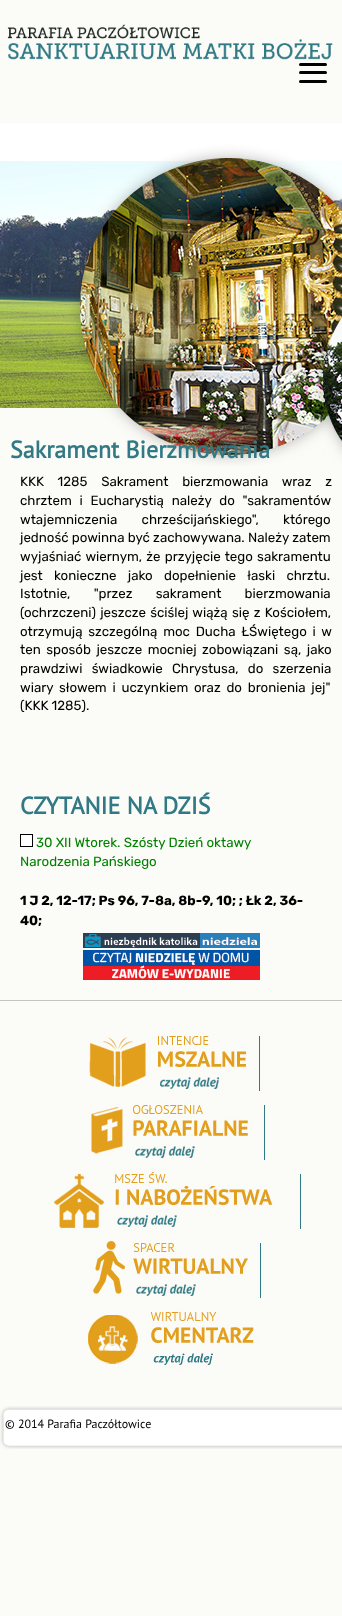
(async () => {
  const canvas = document.querySelector("canvas");
  canvas.width = 342;
  canvas.height = 1616;
  const ctx = canvas.getContext("2d");
  ctx.miterLimit = 4;
  ctx.fontKerning = "normal";
  async function loadImage(src) {
    const img = new Image();
    img.src = src;
    await img.decode();
    return img;
  }

  ctx.fillStyle = "#fbfcf7";
  ctx.fillRect(0, 0, 342, 1616);
  ctx.drawImage(await loadImage("img/1.png"), 0, 123, 342, 343);
  ctx.drawImage(await loadImage("img/2.png"), 7, 24, 326, 36);
  ctx.fillStyle = "#000000";
  ctx.beginPath();
  ctx.roundRect(299, 63, 28, 3, 1.5);
  ctx.fill();
  ctx.beginPath();
  ctx.roundRect(299, 71, 28, 3, 1.5);
  ctx.fill();
  ctx.beginPath();
  ctx.roundRect(299, 80, 28, 3, 1.5);
  ctx.fill();
  ctx.strokeStyle = "#000000";
  ctx.strokeRect(20.5, 834.5, 12, 12);
  ctx.fillStyle = "#ffffff";
  ctx.fillRect(21, 835, 11, 11);
  ctx.drawImage(await loadImage("img/3.png"), 83, 933, 177, 15);
  ctx.drawImage(await loadImage("img/4.png"), 83, 950, 177, 30);
  ctx.fillStyle = "#c0c4c5";
  ctx.fillRect(0, 1000, 342, 1);
  ctx.drawImage(await loadImage("img/5.png"), 88, 1031, 175, 64);
  ctx.drawImage(await loadImage("img/6.png"), 86, 1100, 179, 64);
  ctx.drawImage(await loadImage("img/7.png"), 50, 1169, 251, 64);
  ctx.drawImage(await loadImage("img/8.png"), 89, 1238, 172, 63);
  ctx.drawImage(await loadImage("img/9.png"), 84, 1307, 176, 64);
  ctx.drawImage(await loadImage("img/10.png"), 0, 1406, 342, 43);
  ctx.font = "bold 24px PT Sans";
  ctx.fillStyle = "#307985";
  ctx.fillText("Sakrament Bierzmowania", 10, 458);
  ctx.wordSpacing = "10.5px";
  ctx.font = "13.3px Rubik";
  ctx.fillStyle = "#000000";
  ctx.fillText("KKK 1285 Sakrament bierzmowania wraz z", 20, 486);
  ctx.wordSpacing = "4.5px";
  ctx.fillText("chrztem i Eucharystią należy do \"sakramentów", 20, 505);
  ctx.wordSpacing = "21px";
  ctx.fillText("wtajemniczenia chrześcijańskiego\", którego", 20, 524);
  ctx.wordSpacing = "0px";
  ctx.fillText("jedność powinna być zachowywana. Należy zatem", 20, 542);
  ctx.wordSpacing = "1px";
  ctx.fillText("wyjaśniać wiernym, że przyjęcie tego sakramentu", 20, 561);
  ctx.wordSpacing = "8px";
  ctx.fillText("jest konieczne jako dopełnienie łaski chrztu.", 20, 580);
  ctx.wordSpacing = "20px";
  ctx.fillText("Istotnie, \"przez sakrament bierzmowania", 20, 598);
  ctx.wordSpacing = "1px";
  ctx.fillText("(ochrzczeni) jeszcze ściślej wiążą się z Kościołem,", 20, 617);
  ctx.wordSpacing = "2.5px";
  ctx.fillText("otrzymują szczególną moc Ducha ŁŚwiętego i w", 20, 636);
  ctx.wordSpacing = "2.25px";
  ctx.fillText("ten sposób jeszcze mocniej zobowiązani są, jako", 20, 654);
  ctx.wordSpacing = "6px";
  ctx.fillText("prawdziwi świadkowie Chrystusa, do szerzenia", 20, 673);
  ctx.wordSpacing = "2.5px";
  ctx.fillText("wiary słowem i uczynkiem oraz do bronienia jej\"", 20, 692);
  ctx.wordSpacing = "0px";
  ctx.fillText("(KKK 1285).", 20, 710);
  ctx.font = "bold 24px PT Sans";
  ctx.fillStyle = "#307985";
  ctx.fillText("CZYTANIE NA DZIŚ", 20, 814);
  ctx.font = "13.3px Rubik";
  ctx.fillStyle = "#008000";
  ctx.fillText("30 XII Wtorek. Szósty Dzień oktawy", 36, 847);
  ctx.fillText("Narodzenia Pańskiego", 20, 866);
  ctx.font = "bold 13.3px Rubik";
  ctx.fillStyle = "#000000";
  ctx.fillText("1 J 2, 12-17; Ps 96, 7-8a, 8b-9, 10; ; Łk 2, 36-", 20, 905);
  ctx.fillText("40;", 20, 925);
  ctx.font = "12px PT Sans";
  ctx.fillText("© 2014 Parafia Paczółtowice", 5, 1428);
})();
